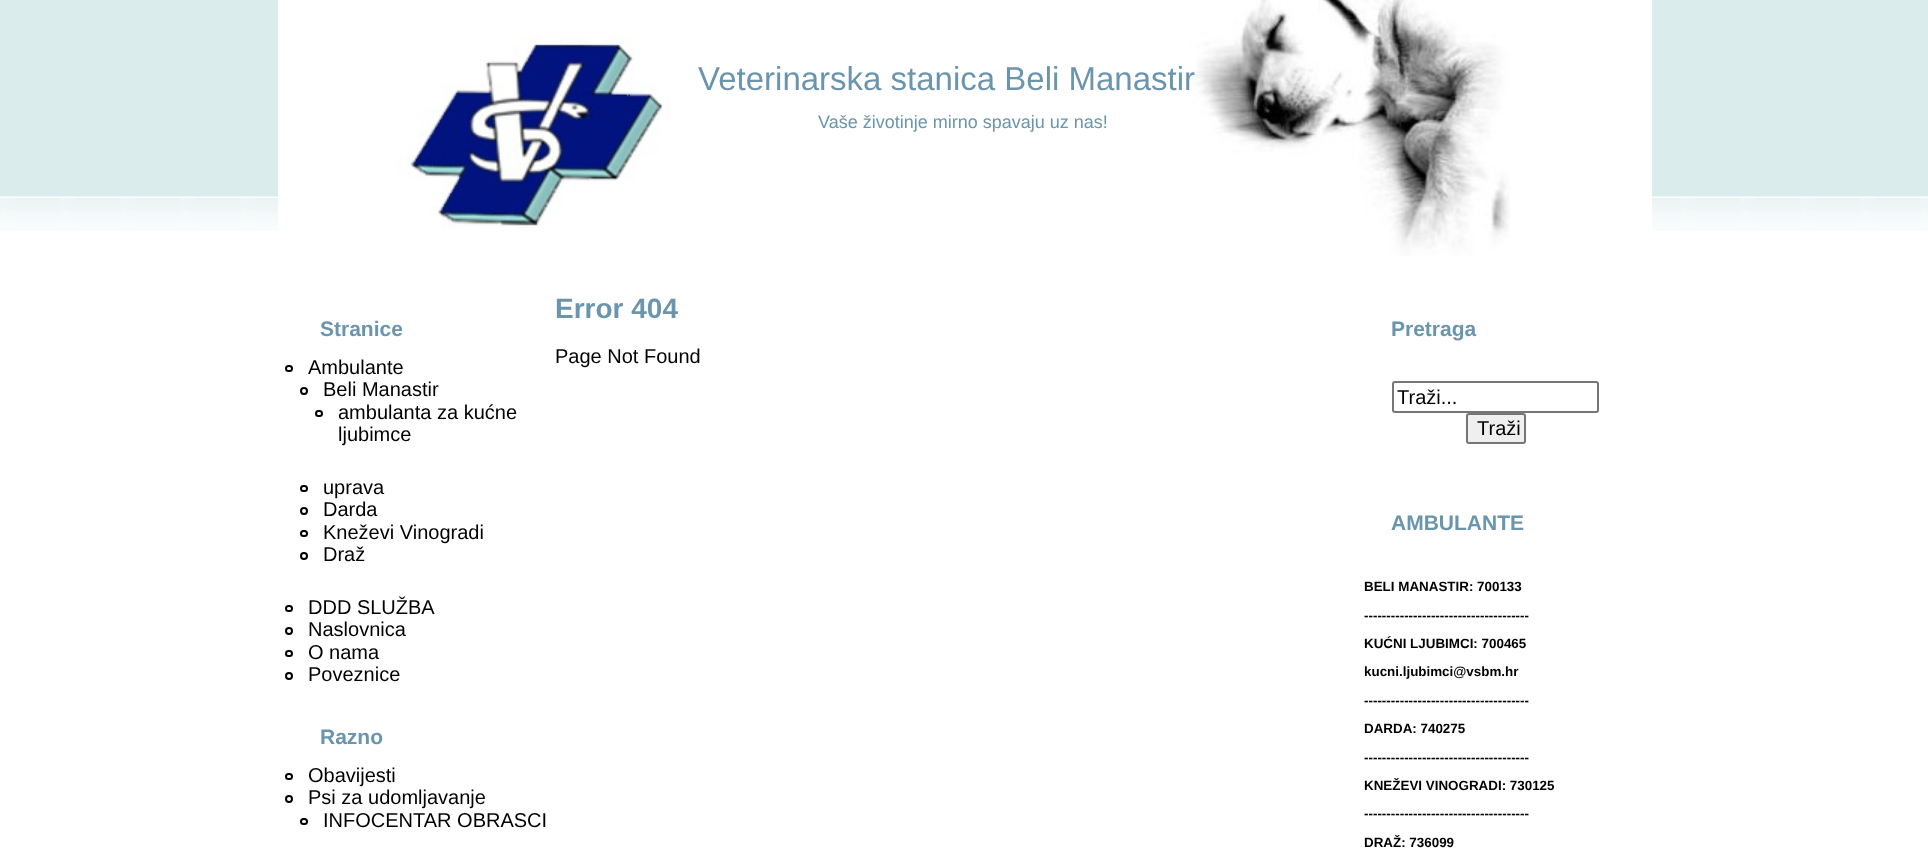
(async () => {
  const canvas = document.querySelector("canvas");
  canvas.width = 1928;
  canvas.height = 861;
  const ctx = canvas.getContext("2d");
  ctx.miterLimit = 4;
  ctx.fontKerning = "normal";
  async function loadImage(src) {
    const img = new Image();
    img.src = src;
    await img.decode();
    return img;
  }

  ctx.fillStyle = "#ffffff";
  ctx.fillRect(0, 0, 1928, 861);
  ctx.drawImage(await loadImage("img/1.png"), 0, 0, 1928, 231);
  ctx.fillRect(278, 0, 1374, 231);
  ctx.drawImage(await loadImage("img/2.png"), 395, 0, 1115, 256);
  ctx.beginPath();
  ctx.roundRect(286, 366, 6, 5, 2.5);
  ctx.strokeStyle = "#000000";
  ctx.lineWidth = 2;
  ctx.stroke();
  ctx.beginPath();
  ctx.arc(304, 391, 3, 0, Math.PI * 2);
  ctx.stroke();
  ctx.beginPath();
  ctx.roundRect(316, 411, 6, 5, 2.5);
  ctx.stroke();
  ctx.beginPath();
  ctx.roundRect(301, 486, 6, 5, 2.5);
  ctx.stroke();
  ctx.beginPath();
  ctx.arc(304, 511, 3, 0, Math.PI * 2);
  ctx.stroke();
  ctx.beginPath();
  ctx.roundRect(301, 531, 6, 5, 2.5);
  ctx.stroke();
  ctx.beginPath();
  ctx.arc(304, 556, 3, 0, Math.PI * 2);
  ctx.stroke();
  ctx.beginPath();
  ctx.roundRect(286, 606, 6, 5, 2.5);
  ctx.stroke();
  ctx.beginPath();
  ctx.arc(289, 631, 3, 0, Math.PI * 2);
  ctx.stroke();
  ctx.beginPath();
  ctx.roundRect(286, 651, 6, 5, 2.5);
  ctx.stroke();
  ctx.beginPath();
  ctx.arc(289, 676, 3, 0, Math.PI * 2);
  ctx.stroke();
  ctx.beginPath();
  ctx.roundRect(286, 774, 6, 5, 2.5);
  ctx.stroke();
  ctx.beginPath();
  ctx.arc(289, 799, 3, 0, Math.PI * 2);
  ctx.stroke();
  ctx.beginPath();
  ctx.roundRect(301, 819, 6, 5, 2.5);
  ctx.stroke();
  ctx.beginPath();
  ctx.roundRect(1393, 382, 205, 30, 2);
  ctx.strokeStyle = "#767676";
  ctx.stroke();
  ctx.fillStyle = "#efefef";
  ctx.beginPath();
  ctx.roundRect(1467, 414, 58, 29, 2);
  ctx.fill();
  ctx.stroke();
  ctx.font = "33px Liberation Sans";
  ctx.fillStyle = "#6a95ad";
  ctx.fillText("Veterinarska stanica Beli Manastir", 698, 90);
  ctx.font = "18px Liberation Sans";
  ctx.fillText("Vaše životinje mirno spavaju uz nas!", 818, 128);
  ctx.font = "bold 21px Liberation Sans";
  ctx.fillText("Stranice", 320, 336);
  ctx.font = "20px Liberation Sans";
  ctx.fillStyle = "#000000";
  for (const [text, x, y] of [
    ["Ambulante", 308, 374],
    ["Beli Manastir", 323, 396],
    ["ambulanta za kućne", 338, 419],
    ["ljubimce", 338, 441],
    ["uprava", 323, 494],
    ["Darda", 323, 516],
    ["Kneževi Vinogradi", 323, 539],
    ["Draž", 323, 561],
    ["DDD SLUŽBA", 308, 614],
    ["Naslovnica", 308, 636],
    ["O nama", 308, 659],
    ["Poveznice", 308, 681],
  ]) {
    ctx.fillText(text, x, y);
  }
  ctx.font = "bold 21px Liberation Sans";
  ctx.fillStyle = "#6a95ad";
  ctx.fillText("Razno", 320, 744);
  ctx.font = "20px Liberation Sans";
  ctx.fillStyle = "#000000";
  for (const [text, x, y] of [
    ["Obavijesti", 308, 782],
    ["Psi za udomljavanje", 308, 804],
    ["INFOCENTAR OBRASCI", 323, 827],
  ]) {
    ctx.fillText(text, x, y);
  }
  ctx.font = "bold 28px Liberation Sans";
  ctx.fillStyle = "#6a95ad";
  ctx.fillText("Error 404", 555, 318);
  ctx.font = "20px Liberation Sans";
  ctx.fillStyle = "#000000";
  ctx.fillText("Page Not Found", 555, 363);
  ctx.font = "bold 21px Liberation Sans";
  ctx.fillStyle = "#6a95ad";
  ctx.fillText("Pretraga", 1391, 336);
  ctx.font = "20px Liberation Sans";
  ctx.fillStyle = "#000000";
  ctx.fillText("Traži...", 1397, 404);
  ctx.fillText("Traži", 1477, 435);
  ctx.font = "bold 21px Liberation Sans";
  ctx.fillStyle = "#6a95ad";
  ctx.fillText("AMBULANTE", 1391, 530);
  ctx.font = "bold 13.4px Liberation Sans";
  ctx.fillStyle = "#000000";
  for (const [text, x, y] of [
    ["BELI MANASTIR: 700133", 1364, 591],
    ["-------------------------------------", 1364, 620],
    ["KUĆNI LJUBIMCI: 700465", 1364, 648],
    ["kucni.ljubimci@vsbm.hr", 1364, 676],
    ["-------------------------------------", 1364, 705],
    ["DARDA: 740275", 1364, 733],
    ["-------------------------------------", 1364, 762],
    ["KNEŽEVI VINOGRADI: 730125", 1364, 790],
    ["-------------------------------------", 1364, 818],
    ["DRAŽ: 736099", 1364, 847],
  ]) {
    ctx.fillText(text, x, y);
  }
})();
